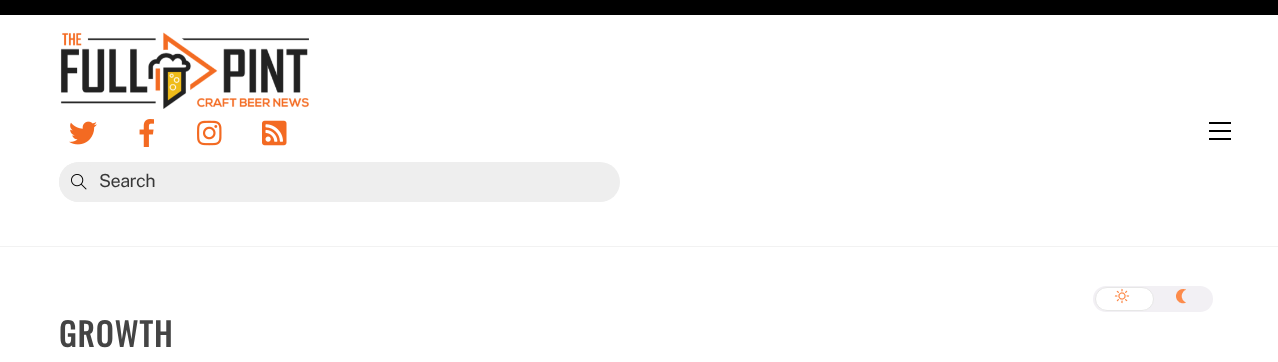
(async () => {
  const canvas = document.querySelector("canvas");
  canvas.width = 1278;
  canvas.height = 362;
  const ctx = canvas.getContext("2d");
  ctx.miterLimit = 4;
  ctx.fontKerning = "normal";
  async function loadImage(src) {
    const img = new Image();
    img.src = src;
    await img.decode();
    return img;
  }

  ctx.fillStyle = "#ffffff";
  ctx.fillRect(0, 0, 1278, 362);
  for (const [x, y, w, h, color] of [
    [0, 0, 1278, 15, "#000000"],
    [0, 246, 1278, 1, "#f2f2f2"],
    [1209, 138, 22, 2, "#000000"],
    [1209, 122, 22, 2, "#000000"],
    [1209, 130, 22, 2, "#000000"],
  ]) {
    ctx.fillStyle = color;
    ctx.fillRect(x, y, w, h);
  }
  ctx.drawImage(await loadImage("img/1.png"), 60, 32, 249, 77);
  ctx.drawImage(await loadImage("img/2.png"), 69, 121, 28, 24);
  ctx.drawImage(await loadImage("img/3.png"), 139, 119, 15, 28);
  ctx.drawImage(await loadImage("img/4.png"), 197, 120, 25, 26);
  ctx.drawImage(await loadImage("img/5.png"), 262, 120, 25, 26);
  ctx.fillStyle = "#eeeeee";
  ctx.beginPath();
  ctx.roundRect(59, 162, 561, 40, 20);
  ctx.fill();
  ctx.beginPath();
  ctx.arc(79, 182, 20, 0, Math.PI * 2);
  ctx.fill();
  ctx.drawImage(await loadImage("img/6.png"), 71, 174, 16, 16);
  ctx.fillStyle = "#f2f0f4";
  ctx.beginPath();
  ctx.roundRect(1093, 286, 120, 26, 13);
  ctx.fill();
  ctx.fillStyle = "#ffffff";
  ctx.beginPath();
  ctx.roundRect(1095.5, 287.5, 58, 23, 11.5);
  ctx.fill();
  ctx.strokeStyle = "#e7e7e7";
  ctx.stroke();
  ctx.drawImage(await loadImage("img/7.png"), 1114, 288, 16, 16);
  ctx.drawImage(await loadImage("img/8.png"), 1176, 289, 10, 15);
  ctx.letterSpacing = "-0.5px";
  ctx.font = "18px Public Sans";
  ctx.fillStyle = "#383838";
  ctx.fillText("Search", 99, 187);
  ctx.letterSpacing = "1.5px";
  ctx.font = "bold 32px Oswald";
  ctx.fillStyle = "#444444";
  ctx.fillText("GROWTH", 59, 347);
})();
